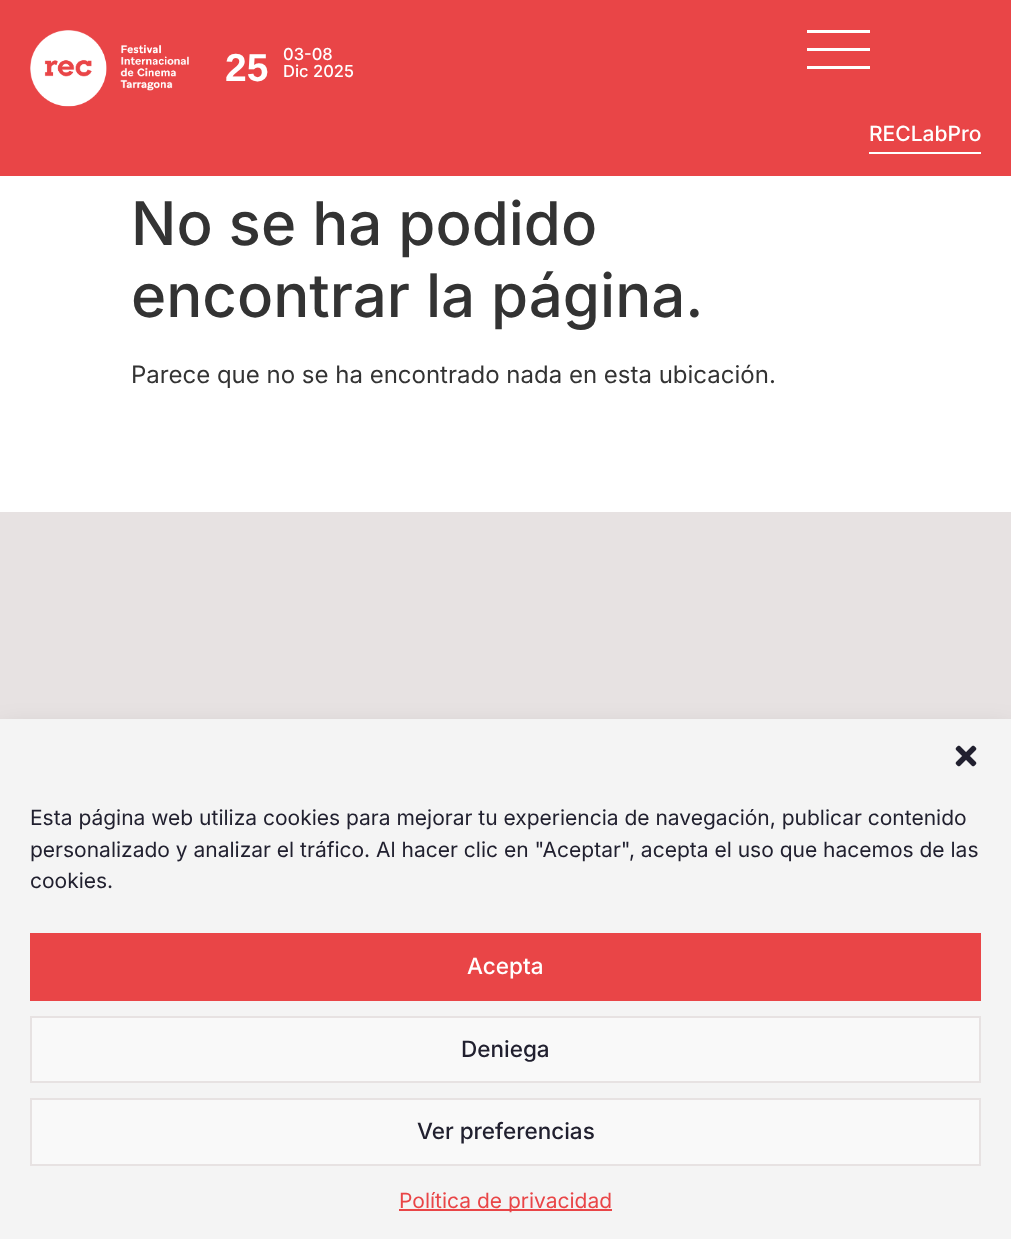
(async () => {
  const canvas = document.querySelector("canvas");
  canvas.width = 1011;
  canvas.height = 1239;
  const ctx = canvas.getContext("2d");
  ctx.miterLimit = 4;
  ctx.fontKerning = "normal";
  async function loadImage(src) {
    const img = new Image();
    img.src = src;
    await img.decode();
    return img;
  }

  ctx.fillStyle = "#ffffff";
  ctx.fillRect(0, 0, 1011, 1239);
  ctx.fillStyle = "#e94547";
  ctx.fillRect(0, 0, 1011, 176);
  ctx.drawImage(await loadImage("img/1.png"), 30, 30, 159, 77);
  for (const [x, y, w, h, color] of [
    [807, 30, 63, 3, "#ffffff"],
    [807, 48, 63, 3, "#ffffff"],
    [807, 66, 63, 3, "#ffffff"],
    [869, 152, 112, 2, "#ffffff"],
    [0, 512, 1011, 207, "#e7e2e2"],
  ]) {
    ctx.fillStyle = color;
    ctx.fillRect(x, y, w, h);
  }
  ctx.fillStyle = "rgba(0, 0, 0, 0.19)";
  ctx.filter = "blur(15px)";
  ctx.beginPath();
  ctx.rect(0, 734, 1011, 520);
  ctx.fill();
  ctx.filter = "none";
  ctx.fillStyle = "#f4f4f4";
  ctx.fillRect(0, 719, 1011, 520);
  ctx.drawImage(await loadImage("img/2.png"), 955, 745, 22, 22);
  ctx.fillStyle = "#e94547";
  ctx.fillRect(30, 933, 951, 68);
  ctx.fillStyle = "#f9f9f9";
  ctx.beginPath();
  ctx.rect(31, 1017, 949, 65);
  ctx.fill();
  ctx.strokeStyle = "#e7e2e2";
  ctx.lineWidth = 2;
  ctx.stroke();
  ctx.beginPath();
  ctx.rect(31, 1099, 949, 66);
  ctx.fill();
  ctx.stroke();
  ctx.fillStyle = "#e94547";
  ctx.fillRect(399, 1209, 213, 2);
  ctx.font = "bold 39px Liberation Sans";
  ctx.fillStyle = "#ffffff";
  ctx.fillText("25", 225, 81);
  ctx.font = "500 16.5px Inter";
  ctx.fillText("03-08", 283, 60);
  ctx.fillText("Dic 2025", 283, 77);
  ctx.font = "500 21px Inter";
  ctx.fillText("RECLabPro", 869, 141);
  ctx.font = "500 60px Inter";
  ctx.fillStyle = "#333333";
  ctx.fillText("No se ha podido", 131, 245);
  ctx.fillText("encontrar la página.", 131, 317);
  ctx.font = "24px Inter";
  ctx.fillText("Parece que no se ha encontrado nada en esta ubicación.", 131, 383);
  ctx.font = "21px Inter";
  ctx.fillStyle = "#21202f";
  for (const [text, x, y] of [
    ["Esta página web utiliza cookies para mejorar tu experiencia de navegación, publicar contenido", 30, 825],
    ["personalizado y analizar el tráfico. Al hacer clic en \"Aceptar\", acepta el uso que hacemos de las", 30, 857],
    ["cookies.", 30, 888],
  ]) {
    ctx.fillText(text, x, y);
  }
  ctx.font = "500 22.5px Inter";
  ctx.fillStyle = "#ffffff";
  ctx.fillText("Acepta", 467, 974);
  ctx.fillStyle = "#21202f";
  ctx.fillText("Deniega", 461, 1057);
  ctx.fillText("Ver preferencias", 417, 1139);
  ctx.font = "21px Inter";
  ctx.fillStyle = "#e94547";
  ctx.fillText("Política de privacidad", 399, 1208);
})();
